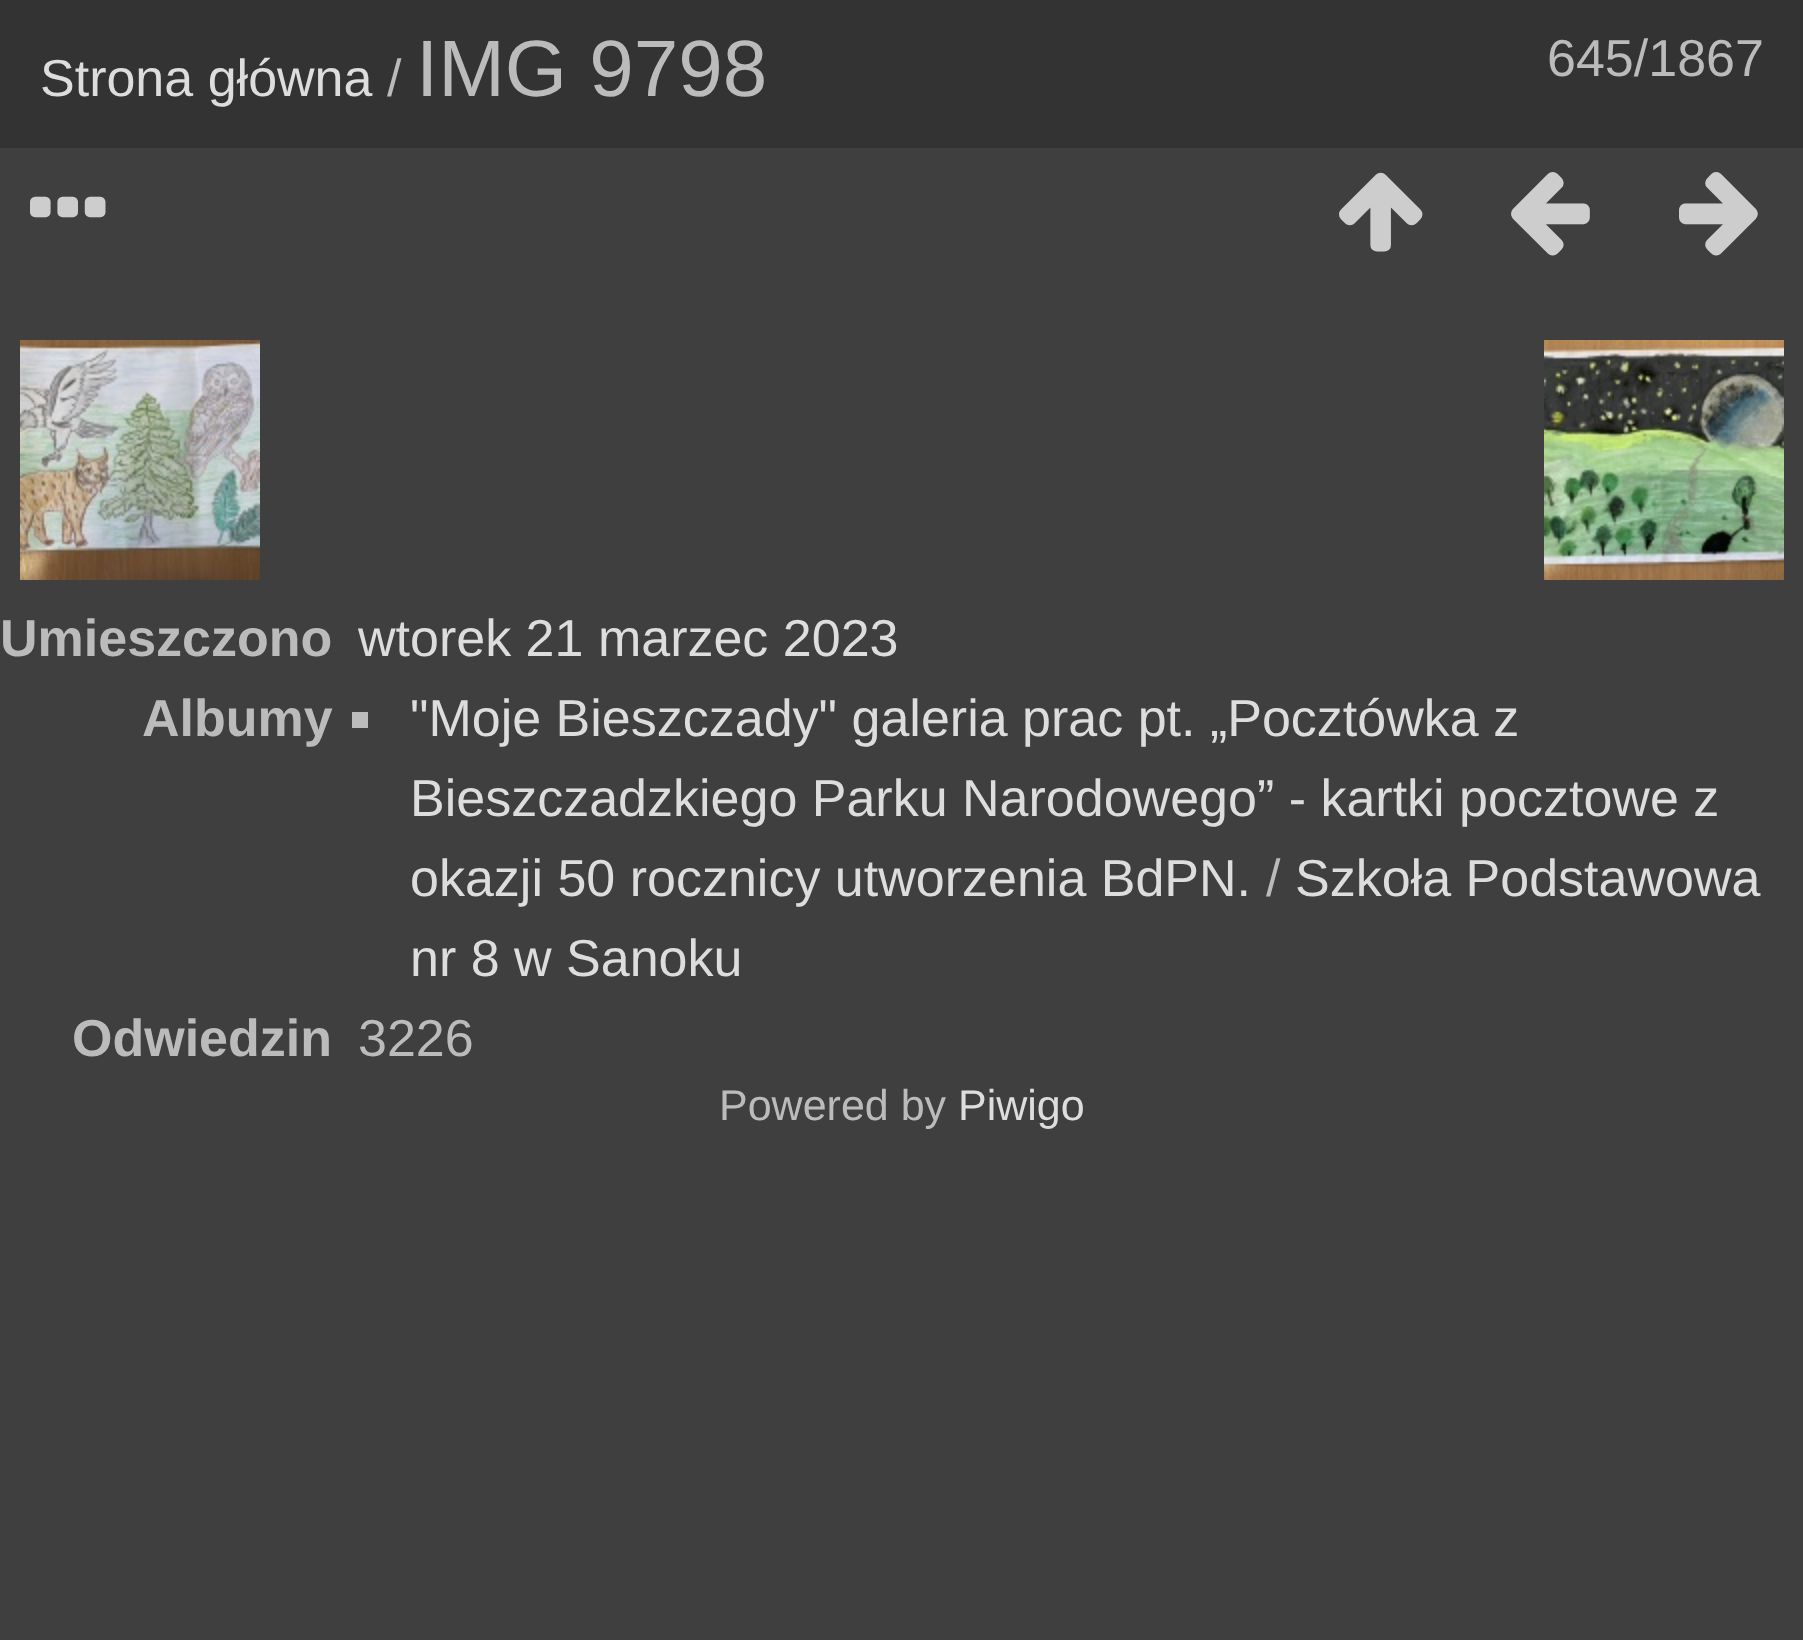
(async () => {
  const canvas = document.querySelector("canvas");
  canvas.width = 1803;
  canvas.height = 1640;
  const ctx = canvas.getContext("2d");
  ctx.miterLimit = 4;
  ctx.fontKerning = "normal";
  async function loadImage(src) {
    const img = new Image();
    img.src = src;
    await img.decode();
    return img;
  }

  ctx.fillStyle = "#3f3f3f";
  ctx.fillRect(0, 0, 1803, 1640);
  ctx.fillStyle = "#333333";
  ctx.fillRect(0, 0, 1803, 148);
  ctx.drawImage(await loadImage("img/1.png"), 20, 340, 240, 240);
  ctx.drawImage(await loadImage("img/2.png"), 1544, 340, 240, 240);
  ctx.fillStyle = "#bbbbbb";
  ctx.fillRect(352, 712, 16, 16);
  ctx.font = "52px Liberation Sans";
  ctx.fillStyle = "#dddddd";
  ctx.fillText("Strona główna", 40, 96);
  ctx.fillStyle = "#bbbbbb";
  ctx.fillText("/", 387, 96);
  ctx.font = "80px Liberation Sans";
  ctx.fillText("IMG 9798", 416, 96);
  ctx.font = "52px Liberation Sans";
  ctx.fillText("645/1867", 1547, 76);
  ctx.font = "96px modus";
  ctx.fillStyle = "#cdcdcd";
  for (const [text, x, y] of [
    ["…", 30, 244],
    ["↑", 1339, 244],
    ["←", 1511, 244],
    ["→", 1679, 244],
  ]) {
    ctx.fillText(text, x, y);
  }
  ctx.font = "bold 52px Liberation Sans";
  ctx.fillStyle = "#bbbbbb";
  ctx.fillText("Umieszczono", 0, 656);
  ctx.font = "52px Liberation Sans";
  ctx.fillStyle = "#dddddd";
  ctx.fillText("wtorek 21 marzec 2023", 358, 656);
  ctx.font = "bold 52px Liberation Sans";
  ctx.fillStyle = "#bbbbbb";
  ctx.fillText("Albumy", 142, 736);
  ctx.font = "52px Liberation Sans";
  ctx.fillStyle = "#dddddd";
  for (const [text, x, y] of [
    ["\"Moje Bieszczady\" galeria prac pt. „Pocztówka z", 410, 736],
    ["Bieszczadzkiego Parku Narodowego” - kartki pocztowe z", 410, 816],
    ["okazji 50 rocznicy utworzenia BdPN.", 410, 896],
  ]) {
    ctx.fillText(text, x, y);
  }
  ctx.fillStyle = "#bbbbbb";
  ctx.fillText("/", 1266, 896);
  ctx.fillStyle = "#dddddd";
  ctx.fillText("Szkoła Podstawowa", 1295, 896);
  ctx.fillText("nr 8 w Sanoku", 410, 976);
  ctx.font = "bold 52px Liberation Sans";
  ctx.fillStyle = "#bbbbbb";
  ctx.fillText("Odwiedzin", 72, 1056);
  ctx.font = "52px Liberation Sans";
  ctx.fillText("3226", 358, 1056);
  ctx.font = "43px Liberation Sans";
  ctx.fillText("Powered by", 719, 1120);
  ctx.fillStyle = "#dddddd";
  ctx.fillText("Piwigo", 958, 1120);
})();
